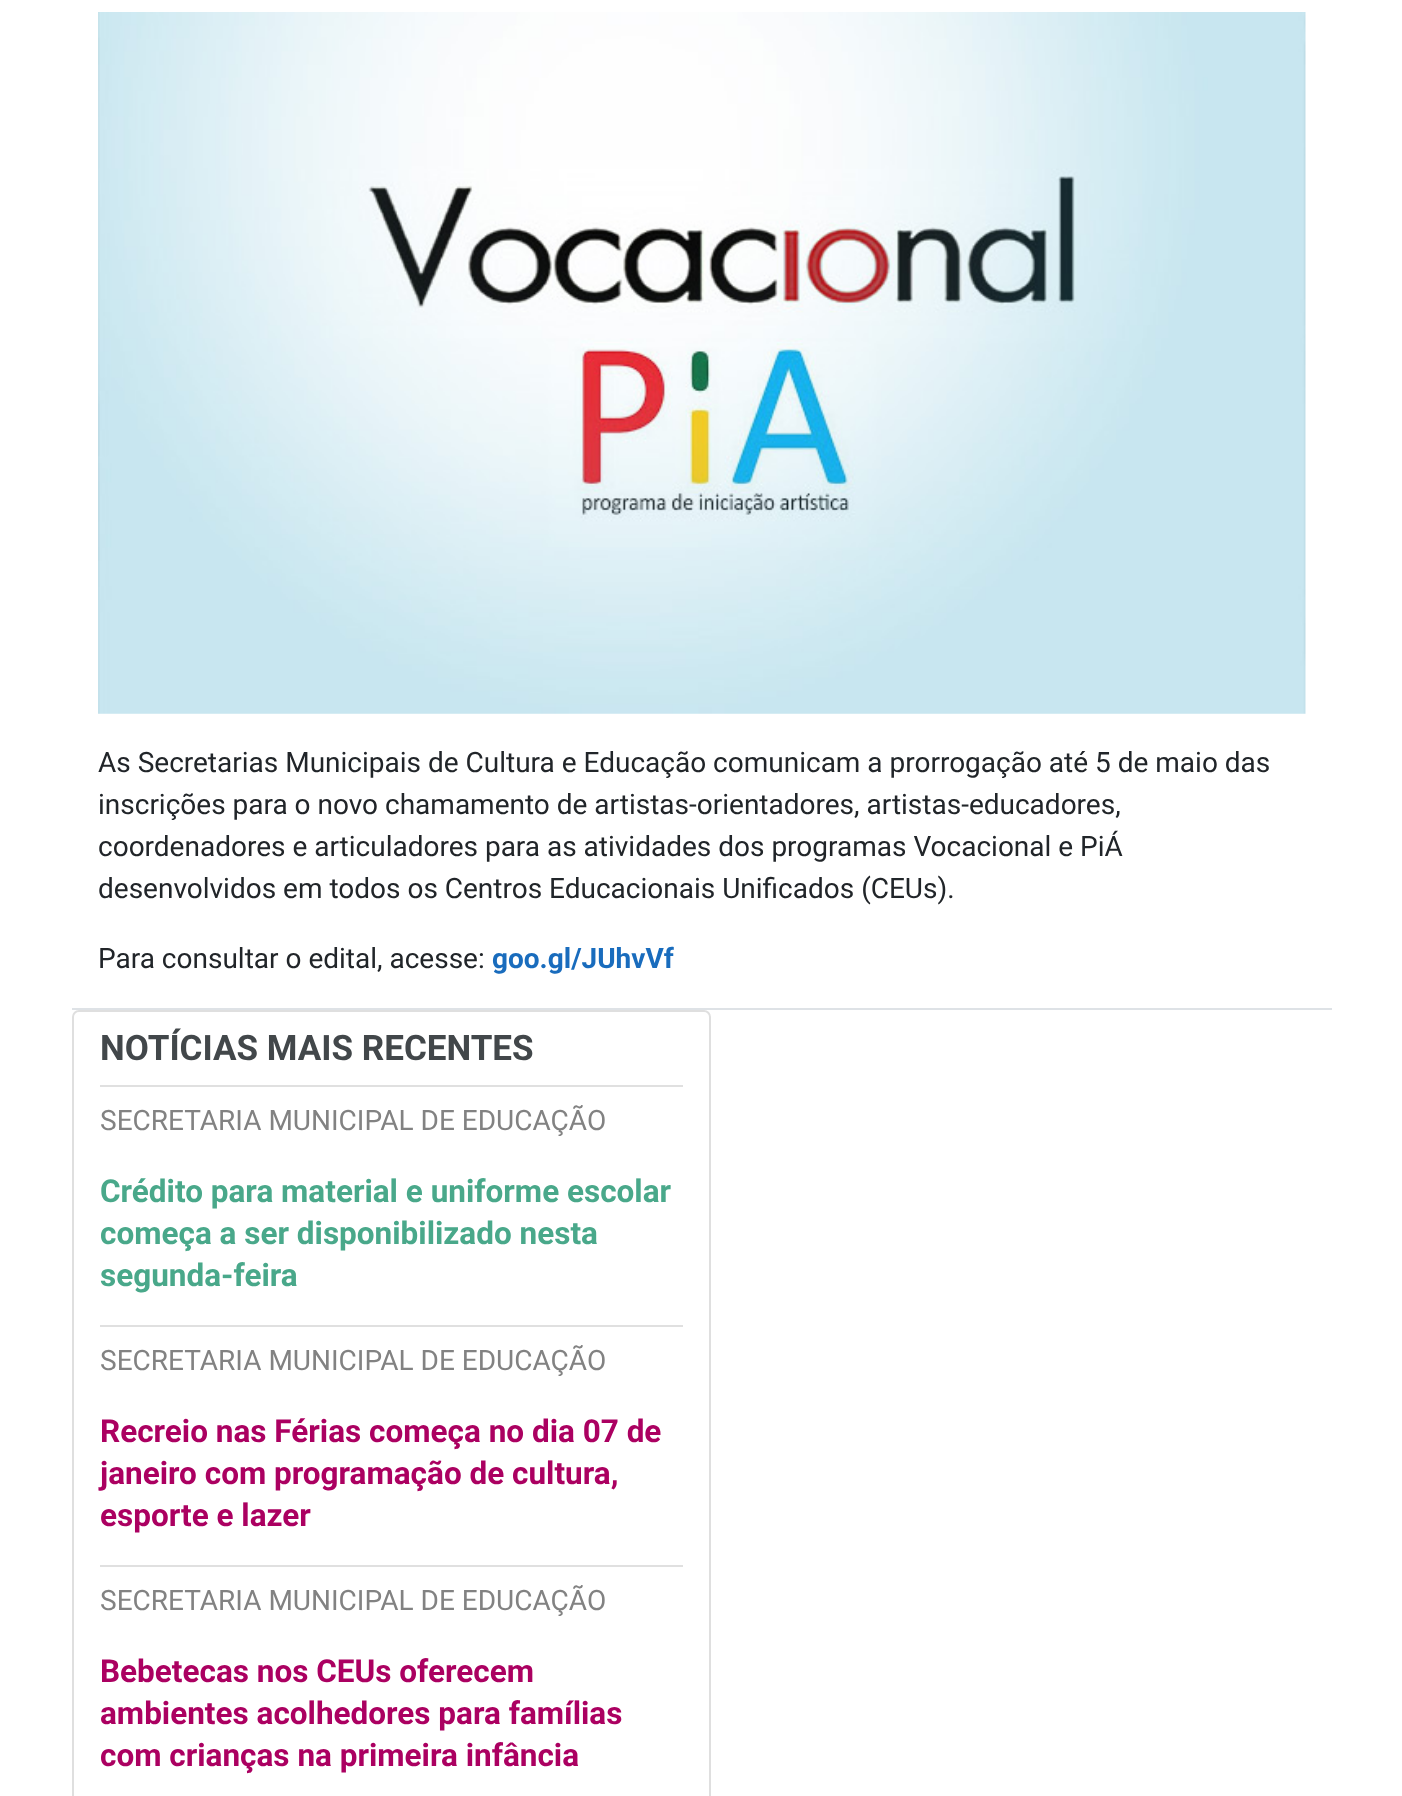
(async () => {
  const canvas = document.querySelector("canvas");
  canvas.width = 1402;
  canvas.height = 1796;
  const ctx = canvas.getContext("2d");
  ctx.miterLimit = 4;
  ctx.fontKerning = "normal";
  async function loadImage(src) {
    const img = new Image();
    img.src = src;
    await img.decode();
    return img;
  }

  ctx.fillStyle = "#ffffff";
  ctx.fillRect(0, 0, 1402, 1796);
  ctx.fillStyle = "#dee2e6";
  ctx.fillRect(72, 1008, 1260, 2);
  ctx.drawImage(await loadImage("img/1.png"), 98, 12, 1208, 702);
  ctx.beginPath();
  ctx.roundRect(73, 1011, 637, 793, 6);
  ctx.strokeStyle = "#dfdfdf";
  ctx.lineWidth = 2;
  ctx.stroke();
  for (const [x, y, w, h, color] of [
    [100, 1085, 583, 2, "#e0e0e0"],
    [100, 1325, 583, 2, "#e0e0e0"],
    [100, 1565, 583, 2, "#e0e0e0"],
  ]) {
    ctx.fillStyle = color;
    ctx.fillRect(x, y, w, h);
  }
  ctx.font = "28px Roboto";
  ctx.fillStyle = "#212529";
  for (const [text, x, y] of [
    ["As Secretarias Municipais de Cultura e Educação comunicam a prorrogação até 5 de maio das", 98, 772],
    ["inscrições para o novo chamamento de artistas-orientadores, artistas-educadores,", 98, 814],
    ["coordenadores e articuladores para as atividades dos programas Vocacional e PiÁ", 98, 856],
    ["desenvolvidos em todos os Centros Educacionais Unificados (CEUs).", 98, 898],
    ["Para consultar o edital, acesse:", 98, 968],
  ]) {
    ctx.fillText(text, x, y);
  }
  ctx.font = "bold 28px Roboto";
  ctx.fillStyle = "#196cbd";
  ctx.fillText("goo.gl/JUhvVf", 492, 968);
  ctx.font = "bold 35px Roboto";
  ctx.fillStyle = "#42474a";
  ctx.fillText("NOTÍCIAS MAIS RECENTES", 100, 1060);
  ctx.font = "28px Roboto";
  ctx.fillStyle = "#828282";
  ctx.fillText("SECRETARIA MUNICIPAL DE EDUCAÇÃO", 100, 1130);
  ctx.font = "bold 31.5px Roboto";
  ctx.fillStyle = "#49a88a";
  for (const [text, x, y] of [
    ["Crédito para material e uniforme escolar", 100, 1202],
    ["começa a ser disponibilizado nesta", 100, 1244],
    ["segunda-feira", 100, 1286],
  ]) {
    ctx.fillText(text, x, y);
  }
  ctx.font = "28px Roboto";
  ctx.fillStyle = "#828282";
  ctx.fillText("SECRETARIA MUNICIPAL DE EDUCAÇÃO", 100, 1370);
  ctx.font = "bold 31.5px Roboto";
  ctx.fillStyle = "#ab0061";
  for (const [text, x, y] of [
    ["Recreio nas Férias começa no dia 07 de", 100, 1442],
    ["janeiro com programação de cultura,", 100, 1484],
    ["esporte e lazer", 100, 1526],
  ]) {
    ctx.fillText(text, x, y);
  }
  ctx.font = "28px Roboto";
  ctx.fillStyle = "#828282";
  ctx.fillText("SECRETARIA MUNICIPAL DE EDUCAÇÃO", 100, 1610);
  ctx.font = "bold 31.5px Roboto";
  ctx.fillStyle = "#ab0061";
  for (const [text, x, y] of [
    ["Bebetecas nos CEUs oferecem", 100, 1682],
    ["ambientes acolhedores para famílias", 100, 1724],
    ["com crianças na primeira infância", 100, 1766],
  ]) {
    ctx.fillText(text, x, y);
  }
})();
